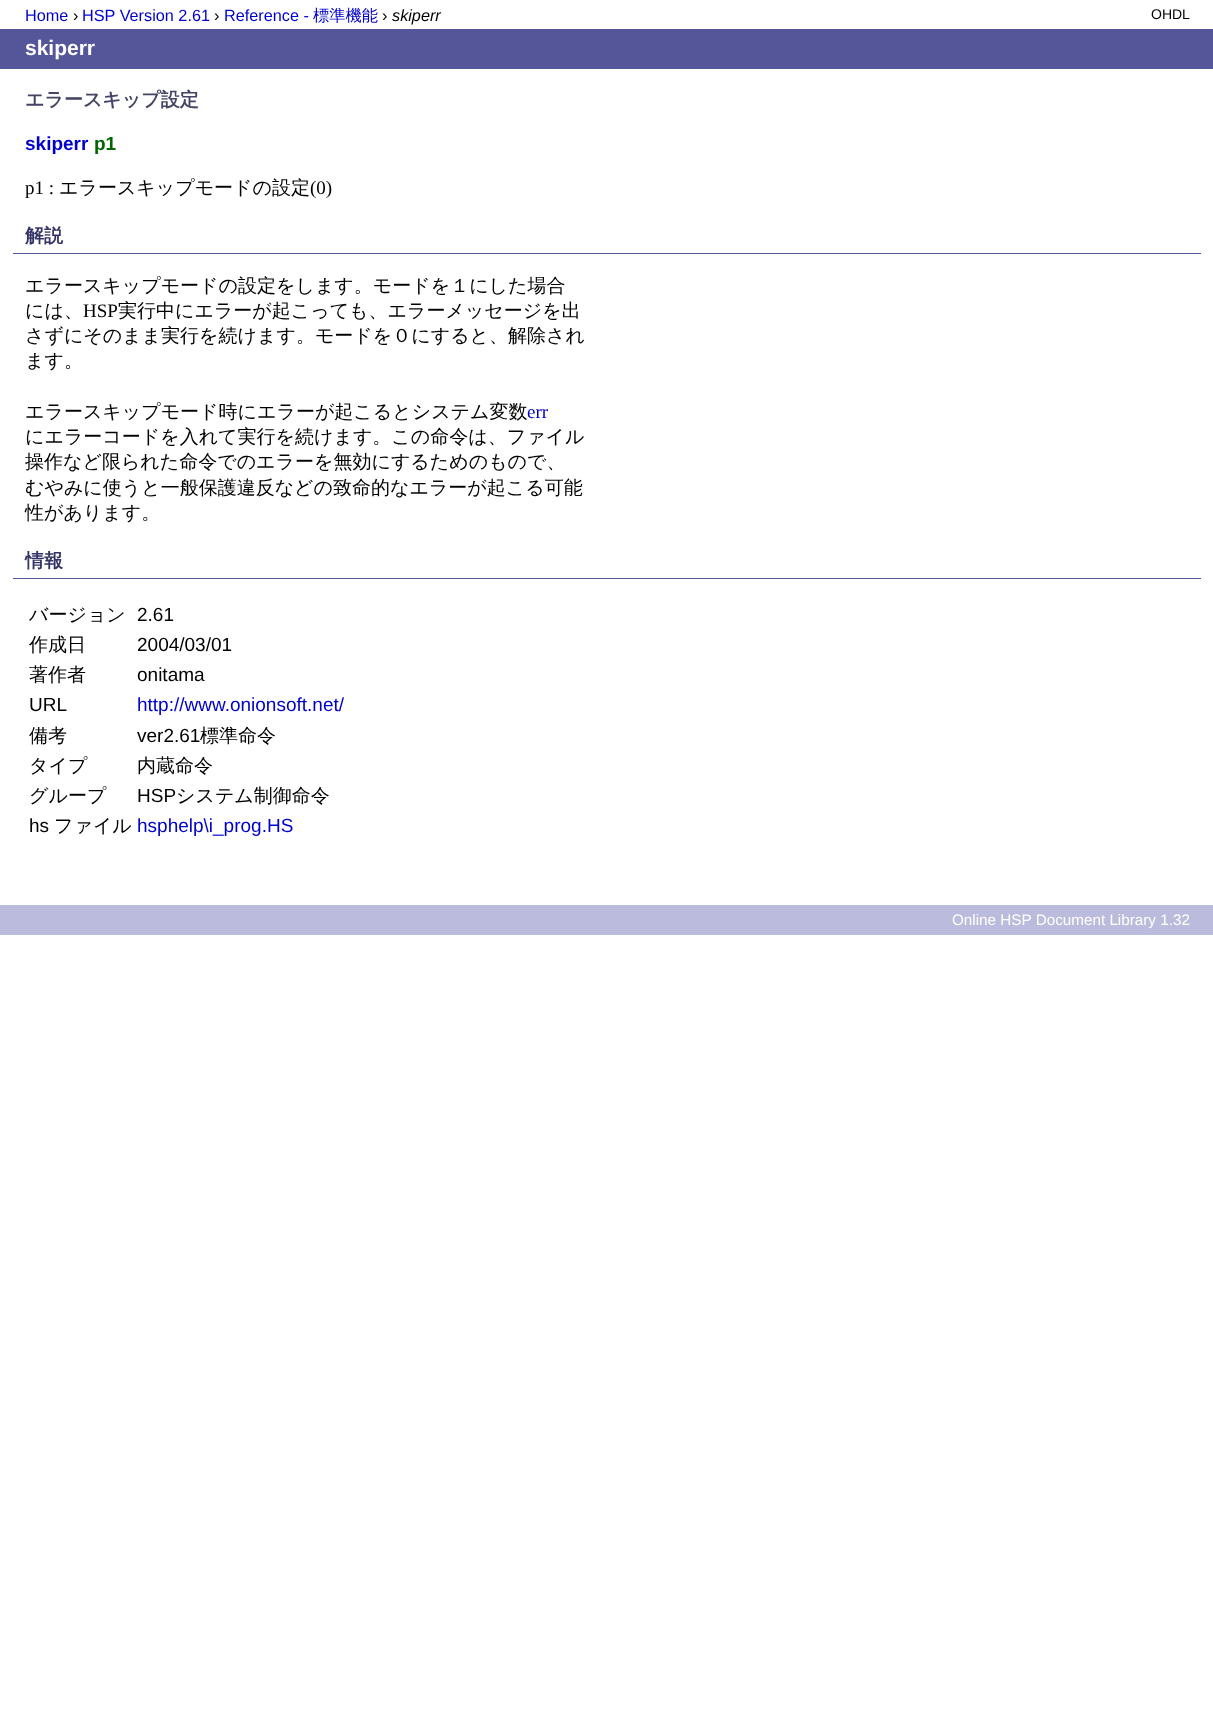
(async () => {
  const canvas = document.querySelector("canvas");
  canvas.width = 1213;
  canvas.height = 1731;
  const ctx = canvas.getContext("2d");
  ctx.miterLimit = 4;
  ctx.fontKerning = "normal";

  ctx.fillStyle = "#ffffff";
  ctx.fillRect(0, 0, 1213, 1731);
  for (const [x, y, w, h, color] of [
    [0, 29, 1213, 40, "#555599"],
    [13, 253, 1188, 1, "#555599"],
    [13, 578, 1188, 1, "#555599"],
    [0, 905, 1213, 30, "#bbbbdd"],
  ]) {
    ctx.fillStyle = color;
    ctx.fillRect(x, y, w, h);
  }
  ctx.font = "16.25px Liberation Sans";
  ctx.fillStyle = "#0000cc";
  ctx.fillText("Home", 25, 21);
  ctx.fillStyle = "#000000";
  ctx.fillText("›", 73, 21);
  ctx.fillStyle = "#0000cc";
  ctx.fillText("HSP Version 2.61", 82, 21);
  ctx.fillStyle = "#000000";
  ctx.fillText("›", 214, 21);
  ctx.fillStyle = "#0000cc";
  ctx.fillText("Reference -", 224, 21);
  ctx.font = "500 16.25px WenQuanYi Zen Hei";
  ctx.fillText("標準機能", 313, 21);
  ctx.font = "16.25px Liberation Sans";
  ctx.fillStyle = "#000000";
  ctx.fillText("›", 382, 21);
  ctx.font = "italic 16.25px Liberation Sans";
  ctx.fillText("skiperr", 392, 21);
  ctx.font = "14px Liberation Sans";
  ctx.fillText("OHDL", 1151, 19);
  ctx.font = "bold 21px Liberation Sans";
  ctx.fillStyle = "#ffffff";
  ctx.fillText("skiperr", 25, 55);
  ctx.font = "bold 19px WenQuanYi Zen Hei";
  ctx.fillStyle = "#444466";
  ctx.fillText("エラースキップ設定", 25, 106);
  ctx.font = "bold 19px Liberation Sans";
  ctx.fillStyle = "#0000cc";
  ctx.fillText("skiperr", 25, 150);
  ctx.fillStyle = "#006600";
  ctx.fillText("p1", 94, 150);
  ctx.font = "19px Liberation Serif";
  ctx.fillStyle = "#000000";
  ctx.fillText("p1 :", 25, 194);
  ctx.font = "500 19px WenQuanYi Zen Hei";
  ctx.fillText("エラースキップモードの設定", 59, 194);
  ctx.font = "19px Liberation Serif";
  ctx.fillText("(0)", 310, 194);
  ctx.font = "bold 19px WenQuanYi Zen Hei";
  ctx.fillStyle = "#333366";
  ctx.fillText("解説", 25, 242);
  ctx.font = "500 19px WenQuanYi Zen Hei";
  ctx.fillStyle = "#000000";
  ctx.fillText("エラースキップモードの設定をします。モードを１にした場合", 25, 292);
  ctx.fillText("には、", 25, 317);
  ctx.font = "19px Liberation Serif";
  ctx.fillText("HSP", 83, 317);
  ctx.font = "500 19px WenQuanYi Zen Hei";
  for (const [text, x, y] of [
    ["実行中にエラーが起こっても、エラーメッセージを出", 118, 317],
    ["さずにそのまま実行を続けます。モードを０にすると、解除され", 25, 342],
    ["ます。", 25, 367],
    ["エラースキップモード時にエラーが起こるとシステム変数", 25, 418],
  ]) {
    ctx.fillText(text, x, y);
  }
  ctx.font = "19px Liberation Serif";
  ctx.fillStyle = "#0000cc";
  ctx.fillText("err", 527, 418);
  ctx.font = "500 19px WenQuanYi Zen Hei";
  ctx.fillStyle = "#000000";
  for (const [text, x, y] of [
    ["にエラーコードを入れて実行を続けます。この命令は、ファイル", 25, 443],
    ["操作など限られた命令でのエラーを無効にするためのもので、", 25, 468],
    ["むやみに使うと一般保護違反などの致命的なエラーが起こる可能", 25, 494],
    ["性があります。", 25, 519],
  ]) {
    ctx.fillText(text, x, y);
  }
  ctx.font = "bold 19px WenQuanYi Zen Hei";
  ctx.fillStyle = "#333366";
  ctx.fillText("情報", 25, 567);
  ctx.font = "500 19px WenQuanYi Zen Hei";
  ctx.fillStyle = "#000000";
  ctx.fillText("バージョン", 29, 621);
  ctx.font = "19px Liberation Sans";
  ctx.fillText("2.61", 137, 621);
  ctx.font = "500 19px WenQuanYi Zen Hei";
  ctx.fillText("作成日", 29, 651);
  ctx.font = "19px Liberation Sans";
  ctx.fillText("2004/03/01", 137, 651);
  ctx.font = "500 19px WenQuanYi Zen Hei";
  ctx.fillText("著作者", 29, 681);
  ctx.font = "19px Liberation Sans";
  ctx.fillText("onitama", 137, 681);
  ctx.fillText("URL", 29, 711);
  ctx.fillStyle = "#0000cc";
  ctx.fillText("http://www.onionsoft.net/", 137, 711);
  ctx.font = "500 19px WenQuanYi Zen Hei";
  ctx.fillStyle = "#000000";
  ctx.fillText("備考", 29, 742);
  ctx.font = "19px Liberation Sans";
  ctx.fillText("ver2.61", 137, 742);
  ctx.font = "500 19px WenQuanYi Zen Hei";
  for (const [text, x, y] of [
    ["標準命令", 200, 742],
    ["タイプ", 29, 772],
    ["内蔵命令", 137, 772],
    ["グループ", 29, 802],
  ]) {
    ctx.fillText(text, x, y);
  }
  ctx.font = "19px Liberation Sans";
  ctx.fillText("HSP", 137, 802);
  ctx.font = "500 19px WenQuanYi Zen Hei";
  ctx.fillText("システム制御命令", 176, 802);
  ctx.font = "19px Liberation Sans";
  ctx.fillText("hs", 29, 832);
  ctx.font = "500 19px WenQuanYi Zen Hei";
  ctx.fillText("ファイル", 54, 832);
  ctx.font = "19px Liberation Sans";
  ctx.fillStyle = "#0000cc";
  ctx.fillText("hsphelp\\i_prog.HS", 137, 832);
  ctx.font = "15.25px Liberation Sans";
  ctx.fillStyle = "#ffffff";
  ctx.fillText("Online HSP Document Library 1.32", 952, 925);
})();
